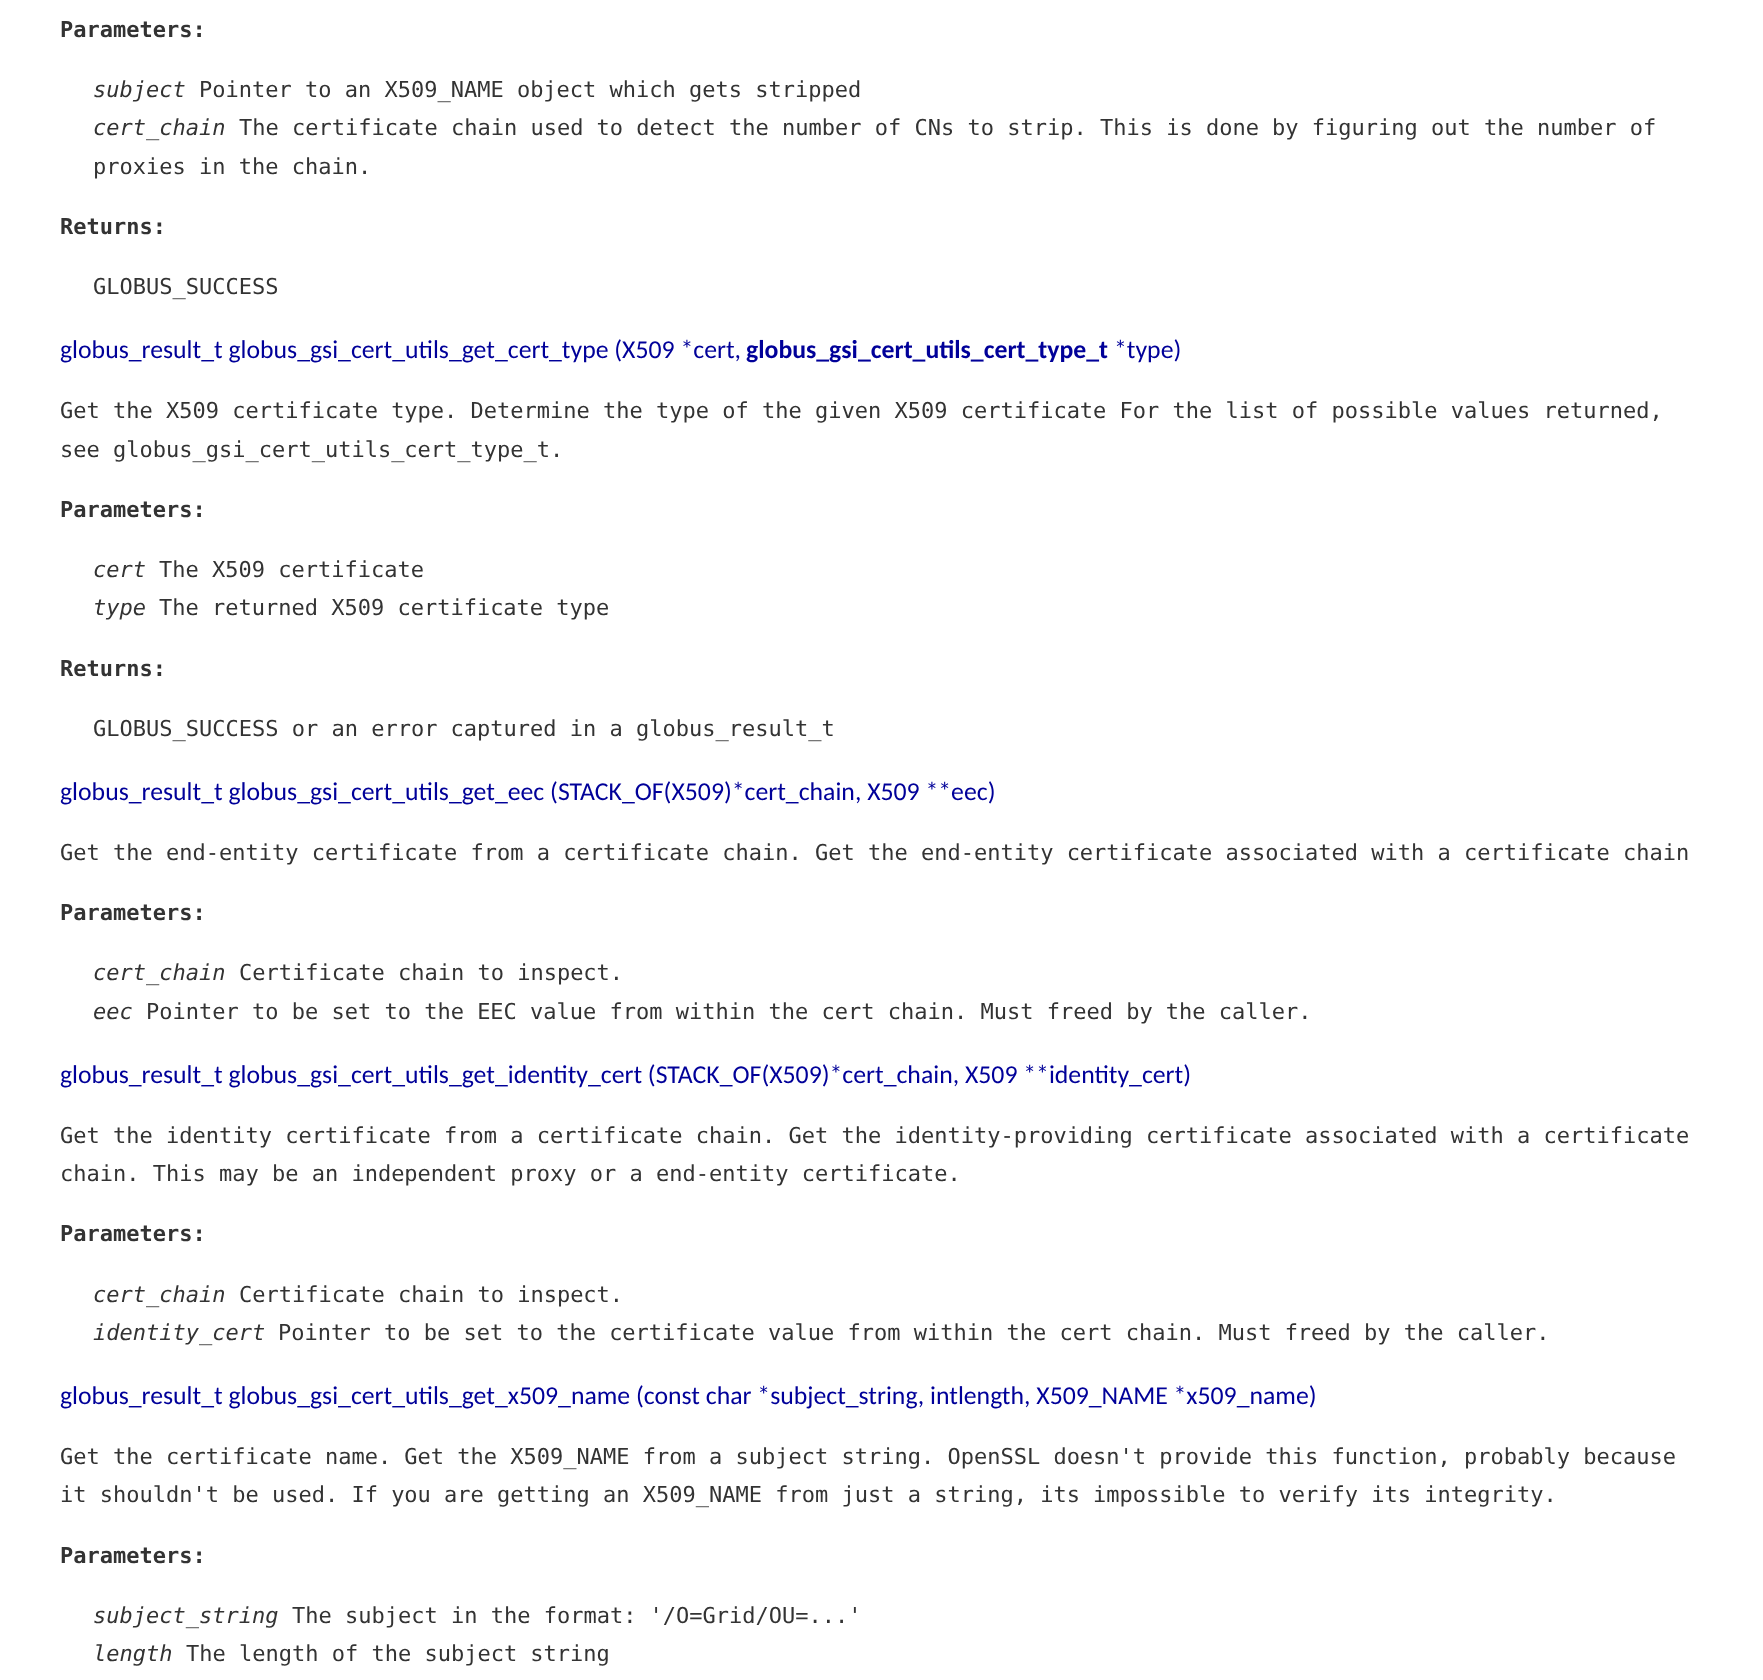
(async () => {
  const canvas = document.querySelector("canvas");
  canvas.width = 1763;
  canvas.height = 1680;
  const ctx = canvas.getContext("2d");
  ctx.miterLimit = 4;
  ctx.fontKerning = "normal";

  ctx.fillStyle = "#ffffff";
  ctx.fillRect(0, 0, 1763, 1680);
  ctx.font = "bold 22px DejaVu Sans Mono";
  ctx.fillStyle = "#333333";
  ctx.fillText("Parameters:", 60, 37);
  ctx.font = "italic 22px DejaVu Sans Mono";
  ctx.fillText("subject", 93, 97);
  ctx.font = "22px DejaVu Sans Mono";
  ctx.fillText("Pointer to an X509_NAME object which gets stripped", 199, 97);
  ctx.font = "italic 22px DejaVu Sans Mono";
  ctx.fillText("cert_chain", 93, 135);
  ctx.font = "22px DejaVu Sans Mono";
  ctx.fillText("The certificate chain used to detect the number of CNs to strip. This is done by figuring out the number of", 239, 135);
  ctx.fillText("proxies in the chain.", 93, 174);
  ctx.font = "bold 22px DejaVu Sans Mono";
  ctx.fillText("Returns:", 60, 234);
  ctx.font = "22px DejaVu Sans Mono";
  ctx.fillText("GLOBUS_SUCCESS", 93, 294);
  ctx.font = "25.75px Carlito";
  ctx.fillStyle = "#000099";
  ctx.fillText("globus_result_t globus_gsi_cert_utils_get_cert_type (X509 *cert,", 60, 358);
  ctx.font = "bold 25.75px Carlito";
  ctx.fillText("globus_gsi_cert_utils_cert_type_t", 746, 358);
  ctx.font = "25.75px Carlito";
  ctx.fillText("*type)", 1114, 358);
  ctx.font = "22px DejaVu Sans Mono";
  ctx.fillStyle = "#333333";
  ctx.fillText("Get the X509 certificate type. Determine the type of the given X509 certificate For the list of possible values returned,", 60, 418);
  ctx.fillText("see globus_gsi_cert_utils_cert_type_t.", 60, 457);
  ctx.font = "bold 22px DejaVu Sans Mono";
  ctx.fillText("Parameters:", 60, 517);
  ctx.font = "italic 22px DejaVu Sans Mono";
  ctx.fillText("cert", 93, 577);
  ctx.font = "22px DejaVu Sans Mono";
  ctx.fillText("The X509 certificate", 159, 577);
  ctx.font = "italic 22px DejaVu Sans Mono";
  ctx.fillText("type", 93, 615);
  ctx.font = "22px DejaVu Sans Mono";
  ctx.fillText("The returned X509 certificate type", 159, 615);
  ctx.font = "bold 22px DejaVu Sans Mono";
  ctx.fillText("Returns:", 60, 676);
  ctx.font = "22px DejaVu Sans Mono";
  ctx.fillText("GLOBUS_SUCCESS or an error captured in a globus_result_t", 93, 736);
  ctx.font = "25.75px Carlito";
  ctx.fillStyle = "#000099";
  ctx.fillText("globus_result_t globus_gsi_cert_utils_get_eec (STACK_OF(X509)*cert_chain, X509 **eec)", 60, 800);
  ctx.font = "22px DejaVu Sans Mono";
  ctx.fillStyle = "#333333";
  ctx.fillText("Get the end-entity certificate from a certificate chain. Get the end-entity certificate associated with a certificate chain", 60, 860);
  ctx.font = "bold 22px DejaVu Sans Mono";
  ctx.fillText("Parameters:", 60, 920);
  ctx.font = "italic 22px DejaVu Sans Mono";
  ctx.fillText("cert_chain", 93, 980);
  ctx.font = "22px DejaVu Sans Mono";
  ctx.fillText("Certificate chain to inspect.", 239, 980);
  ctx.font = "italic 22px DejaVu Sans Mono";
  ctx.fillText("eec", 93, 1019);
  ctx.font = "22px DejaVu Sans Mono";
  ctx.fillText("Pointer to be set to the EEC value from within the cert chain. Must freed by the caller.", 146, 1019);
  ctx.font = "25.75px Carlito";
  ctx.fillStyle = "#000099";
  ctx.fillText("globus_result_t globus_gsi_cert_utils_get_identity_cert (STACK_OF(X509)*cert_chain, X509 **identity_cert)", 60, 1083);
  ctx.font = "22px DejaVu Sans Mono";
  ctx.fillStyle = "#333333";
  ctx.fillText("Get the identity certificate from a certificate chain. Get the identity-providing certificate associated with a certificate", 60, 1143);
  ctx.fillText("chain. This may be an independent proxy or a end-entity certificate.", 60, 1181);
  ctx.font = "bold 22px DejaVu Sans Mono";
  ctx.fillText("Parameters:", 60, 1241);
  ctx.font = "italic 22px DejaVu Sans Mono";
  ctx.fillText("cert_chain", 93, 1302);
  ctx.font = "22px DejaVu Sans Mono";
  ctx.fillText("Certificate chain to inspect.", 239, 1302);
  ctx.font = "italic 22px DejaVu Sans Mono";
  ctx.fillText("identity_cert", 93, 1340);
  ctx.font = "22px DejaVu Sans Mono";
  ctx.fillText("Pointer to be set to the certificate value from within the cert chain. Must freed by the caller.", 278, 1340);
  ctx.font = "25.75px Carlito";
  ctx.fillStyle = "#000099";
  ctx.fillText("globus_result_t globus_gsi_cert_utils_get_x509_name (const char *subject_string, intlength, X509_NAME *x509_name)", 60, 1404);
  ctx.font = "22px DejaVu Sans Mono";
  ctx.fillStyle = "#333333";
  ctx.fillText("Get the certificate name. Get the X509_NAME from a subject string. OpenSSL doesn't provide this function, probably because", 60, 1464);
  ctx.fillText("it shouldn't be used. If you are getting an X509_NAME from just a string, its impossible to verify its integrity.", 60, 1502);
  ctx.font = "bold 22px DejaVu Sans Mono";
  ctx.fillText("Parameters:", 60, 1563);
  ctx.font = "italic 22px DejaVu Sans Mono";
  ctx.fillText("subject_string", 93, 1623);
  ctx.font = "22px DejaVu Sans Mono";
  ctx.fillText("The subject in the format: '/O=Grid/OU=...'", 292, 1623);
  ctx.font = "italic 22px DejaVu Sans Mono";
  ctx.fillText("length", 93, 1661);
  ctx.font = "22px DejaVu Sans Mono";
  ctx.fillText("The length of the subject string", 186, 1661);
})();
